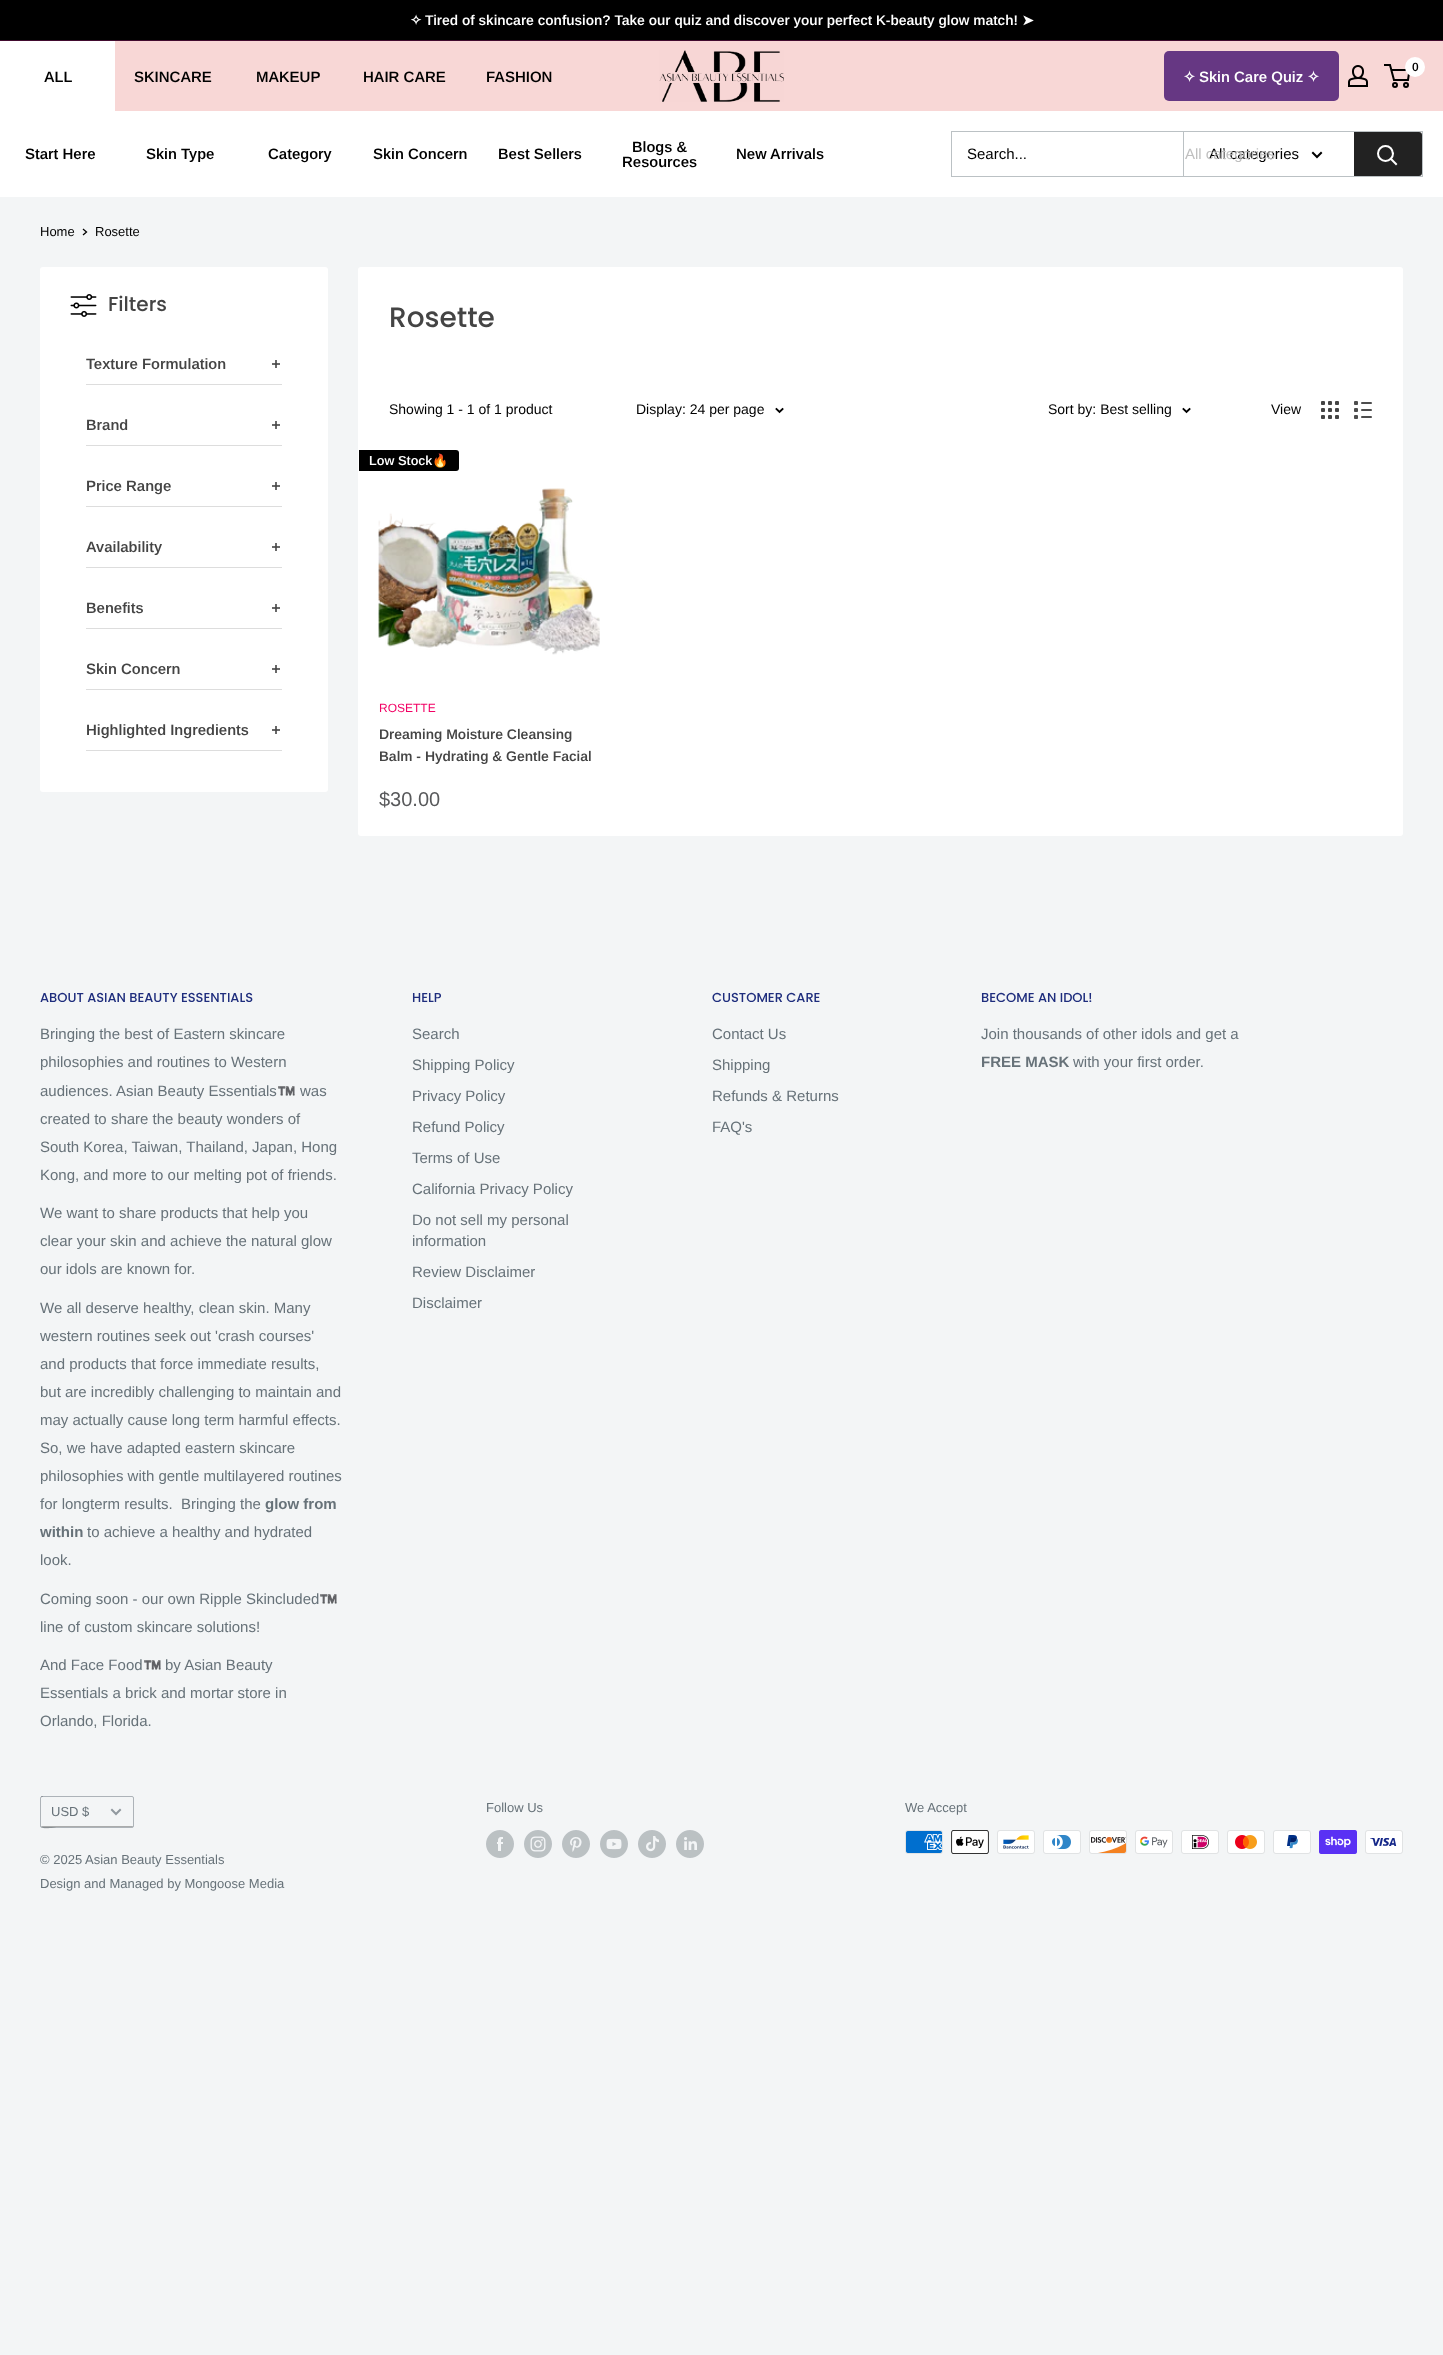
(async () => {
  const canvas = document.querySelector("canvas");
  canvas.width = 1443;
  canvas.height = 2355;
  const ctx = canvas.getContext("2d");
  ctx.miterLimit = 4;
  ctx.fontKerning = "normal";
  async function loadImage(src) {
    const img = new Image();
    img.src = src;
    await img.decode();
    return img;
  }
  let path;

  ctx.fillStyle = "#f3f5f6";
  ctx.fillRect(0, 0, 1443, 2355);
  for (const [x, y, w, h, color] of [
    [0, 0, 1443, 40, "#000000"],
    [0, 40, 1443, 1, "#420b2f"],
    [115, 41, 1328, 70, "#f8d7d6"],
    [0, 41, 115, 70, "#ffffff"],
  ]) {
    ctx.fillStyle = color;
    ctx.fillRect(x, y, w, h);
  }
  ctx.drawImage(await loadImage("img/1.png"), 659, 50, 125, 52);
  ctx.fillStyle = "#663783";
  ctx.beginPath();
  ctx.roundRect(1164, 51, 175, 50, 5);
  ctx.fill();
  ctx.drawImage(await loadImage("img/2.png"), 1348, 65, 20, 22);
  ctx.beginPath();
  ctx.arc(1395, 85, 2, 0, Math.PI * 2);
  ctx.strokeStyle = "#000000";
  ctx.lineWidth = 2;
  ctx.stroke();
  ctx.beginPath();
  ctx.arc(1406, 85, 2, 0, Math.PI * 2);
  ctx.stroke();
  path = new Path2D("M1391.5 70H1409.5L1408 80H1394L1390 65H1384");
  ctx.stroke(path);
  ctx.fillStyle = "#ffffff";
  ctx.beginPath();
  ctx.arc(1415, 67, 10, 0, Math.PI * 2);
  ctx.fill();
  ctx.fillRect(0, 111, 1443, 86);
  ctx.strokeStyle = "#bbc1c4";
  ctx.lineWidth = 1;
  ctx.strokeRect(951.5, 131.5, 471, 45);
  ctx.fillStyle = "#bbc1c4";
  ctx.fillRect(1183, 132, 1, 44);
  path = new Path2D("M1321 153L1317 157L1313 153");
  ctx.strokeStyle = "#000000";
  ctx.lineWidth = 2;
  ctx.lineCap = "square";
  ctx.stroke(path);
  ctx.fillStyle = "#222222";
  ctx.beginPath();
  ctx.roundRect(1353, 132, 69, 44, [0, 3, 3, 0]);
  ctx.fill();
  ctx.fillStyle = "#ffffff";
  ctx.fillRect(1353, 132, 1, 44);
  path = new Path2D("M1396 164L1391 159");
  ctx.strokeStyle = "#ffffff";
  ctx.stroke(path);
  ctx.beginPath();
  ctx.arc(1385.5, 153.5, 7.5, 0, Math.PI * 2);
  ctx.stroke();
  path = new Path2D("M83.5 229.5L86.5 232L83.5 234.5");
  ctx.strokeStyle = "#000000";
  ctx.lineWidth = 1.3;
  ctx.stroke(path);
  ctx.beginPath();
  ctx.roundRect(40, 267, 288, 525, 3);
  ctx.fill();
  ctx.drawImage(await loadImage("img/3.png"), 70, 294, 27, 23);
  ctx.fillStyle = "#dddddd";
  ctx.fillRect(86, 384, 196, 1);
  ctx.drawImage(await loadImage("img/4.png"), 272, 360, 8, 8);
  ctx.fillRect(86, 445, 196, 1);
  ctx.drawImage(await loadImage("img/4.png"), 272, 421, 8, 8);
  ctx.fillRect(86, 506, 196, 1);
  ctx.drawImage(await loadImage("img/4.png"), 272, 482, 8, 8);
  ctx.fillRect(86, 567, 196, 1);
  ctx.drawImage(await loadImage("img/4.png"), 272, 543, 8, 8);
  ctx.fillRect(86, 628, 196, 1);
  ctx.drawImage(await loadImage("img/4.png"), 272, 604, 8, 8);
  ctx.fillRect(86, 689, 196, 1);
  ctx.drawImage(await loadImage("img/4.png"), 272, 665, 8, 8);
  ctx.fillRect(86, 750, 196, 1);
  ctx.drawImage(await loadImage("img/4.png"), 272, 726, 8, 8);
  ctx.fillStyle = "#ffffff";
  ctx.beginPath();
  ctx.roundRect(358, 267, 1045, 569, 3);
  ctx.fill();
  path = new Path2D("M782.5 409L779.5 412L776.5 409");
  ctx.lineWidth = 1.9;
  ctx.stroke(path);
  path = new Path2D("M1189.5 409L1186.5 412L1183.5 409");
  ctx.stroke(path);
  ctx.drawImage(await loadImage("img/5.png"), 1321, 401, 18, 18);
  ctx.drawImage(await loadImage("img/6.png"), 1354, 401, 18, 18);
  ctx.fillStyle = "#000000";
  ctx.beginPath();
  ctx.roundRect(359, 450, 100, 21, [0, 3, 3, 0]);
  ctx.fill();
  ctx.drawImage(await loadImage("img/7.png"), 378, 488, 222, 167);
  ctx.fillStyle = "#aaacac";
  path = new Path2D("M41 1825C41 1831 55 1827 57 1827H132C133 1827 133 1826 133 1825C133 1826 133 1826 132 1826H42C41 1826 41 1826 41 1825Z");
  ctx.fill(path);
  ctx.beginPath();
  ctx.roundRect(40.5, 1796.5, 93, 31, 1.5);
  ctx.strokeStyle = "rgba(103, 114, 121, 0.5)";
  ctx.lineWidth = 1;
  ctx.stroke();
  path = new Path2D("M120 1810L116 1814L112 1810");
  ctx.strokeStyle = "#91999f";
  ctx.lineWidth = 2;
  ctx.stroke(path);
  ctx.drawImage(await loadImage("img/8.png"), 486, 1830, 28, 28);
  ctx.drawImage(await loadImage("img/9.png"), 524, 1830, 28, 28);
  ctx.drawImage(await loadImage("img/10.png"), 562, 1830, 28, 28);
  ctx.drawImage(await loadImage("img/11.png"), 600, 1830, 28, 28);
  ctx.drawImage(await loadImage("img/12.png"), 638, 1830, 28, 28);
  ctx.drawImage(await loadImage("img/13.png"), 676, 1830, 28, 28);
  ctx.drawImage(await loadImage("img/14.png"), 905, 1830, 38, 24);
  ctx.drawImage(await loadImage("img/15.png"), 951, 1830, 38, 24);
  ctx.drawImage(await loadImage("img/16.png"), 997, 1830, 38, 24);
  ctx.drawImage(await loadImage("img/17.png"), 1043, 1830, 38, 24);
  ctx.drawImage(await loadImage("img/18.png"), 1089, 1830, 38, 24);
  ctx.drawImage(await loadImage("img/19.png"), 1135, 1830, 38, 24);
  ctx.drawImage(await loadImage("img/20.png"), 1181, 1830, 38, 24);
  ctx.drawImage(await loadImage("img/21.png"), 1227, 1830, 38, 24);
  ctx.drawImage(await loadImage("img/22.png"), 1273, 1830, 38, 24);
  ctx.drawImage(await loadImage("img/23.png"), 1319, 1830, 38, 24);
  ctx.drawImage(await loadImage("img/24.png"), 1365, 1830, 38, 24);
  ctx.font = "bold 14px DejaVu Sans";
  ctx.fillStyle = "#ffffff";
  ctx.fillText("✧", 410, 25);
  ctx.font = "600 14px Arimo";
  ctx.fillText("Tired of skincare confusion? Take our quiz and discover your perfect K-beauty glow match!", 425, 25);
  ctx.font = "bold 14px DejaVu Sans";
  ctx.fillText("➤", 1022, 25);
  ctx.font = "600 15px Arimo";
  ctx.fillStyle = "#000000";
  for (const [text, x, y] of [
    ["ALL", 44, 82],
    ["SKINCARE", 134, 82],
    ["MAKEUP", 256, 82],
    ["HAIR CARE", 363, 82],
    ["FASHION", 486, 82],
  ]) {
    ctx.fillText(text, x, y);
  }
  ctx.font = "bold 15px DejaVu Sans";
  ctx.fillStyle = "#ffffff";
  ctx.fillText("✧", 1183, 82);
  ctx.font = "600 15px Arimo";
  ctx.fillText("Skin Care Quiz", 1199, 82);
  ctx.font = "bold 15px DejaVu Sans";
  ctx.fillText("✧", 1307, 82);
  ctx.font = "600 12px Arimo";
  ctx.fillStyle = "#000000";
  ctx.fillText("0", 1412, 71);
  ctx.font = "600 15px Arimo";
  for (const [text, x, y] of [
    ["Start Here", 25, 159],
    ["Skin Type", 146, 159],
    ["Category", 268, 159],
    ["Skin Concern", 373, 159],
    ["Best Sellers", 498, 159],
    ["Blogs &", 632, 152],
    ["Resources", 622, 167],
    ["New Arrivals", 736, 159],
  ]) {
    ctx.fillText(text, x, y);
  }
  ctx.font = "15px Arimo";
  ctx.fillText("Search...", 967, 159);
  ctx.fillText("All categories", 1209, 159);
  ctx.fillStyle = "#bfbfbf";
  ctx.fillText("All categories", 1185, 159);
  ctx.font = "13px Arimo";
  ctx.fillStyle = "#000000";
  ctx.fillText("Home", 40, 236);
  ctx.fillText("Rosette", 95, 236);
  ctx.font = "500 20px Poppins";
  ctx.fillStyle = "#444444";
  ctx.fillText("Filters", 108, 311);
  ctx.font = "600 15px Arimo";
  for (const [text, x, y] of [
    ["Texture Formulation", 86, 369],
    ["Brand", 86, 430],
    ["Price Range", 86, 491],
    ["Availability", 86, 552],
    ["Benefits", 86, 613],
    ["Skin Concern", 86, 674],
    ["Highlighted Ingredients", 86, 735],
  ]) {
    ctx.fillText(text, x, y);
  }
  ctx.font = "500 28px Poppins";
  ctx.fillText("Rosette", 389, 327);
  ctx.font = "14px Arimo";
  ctx.fillStyle = "#000000";
  for (const [text, x, y] of [
    ["Showing 1 - 1 of 1 product", 389, 414],
    ["Display: 24 per page", 636, 414],
    ["Sort by: Best selling", 1048, 414],
    ["View", 1271, 414],
  ]) {
    ctx.fillText(text, x, y);
  }
  ctx.font = "600 13px Arimo";
  ctx.fillStyle = "#ffffff";
  ctx.fillText("Low Stock", 369, 465);
  ctx.font = "bold 13px Noto Color Emoji";
  ctx.fillText("🔥", 432, 465);
  ctx.font = "12px Arimo";
  ctx.fillStyle = "#f20064";
  ctx.fillText("ROSETTE", 379, 712);
  ctx.font = "600 14px Arimo";
  ctx.fillStyle = "#444444";
  ctx.fillText("Dreaming Moisture Cleansing", 379, 739);
  ctx.fillText("Balm - Hydrating & Gentle Facial", 379, 761);
  ctx.font = "20px Arimo";
  ctx.fillStyle = "#58595b";
  ctx.fillText("$30.00", 379, 806);
  ctx.font = "500 13px Poppins";
  ctx.fillStyle = "#1e2d7d";
  ctx.fillText("ABOUT ASIAN BEAUTY ESSENTIALS", 40, 1002);
  ctx.font = "15px Arimo";
  ctx.fillStyle = "#677279";
  for (const [text, x, y] of [
    ["Bringing the best of Eastern skincare", 40, 1039],
    ["philosophies and routines to Western", 40, 1067],
    ["audiences. Asian Beauty Essentials", 40, 1096],
  ]) {
    ctx.fillText(text, x, y);
  }
  ctx.font = "15px Noto Color Emoji";
  ctx.fillText("™️", 277, 1096);
  ctx.font = "15px Arimo";
  for (const [text, x, y] of [
    ["was", 300, 1096],
    ["created to share the beauty wonders of", 40, 1124],
    ["South Korea, Taiwan, Thailand, Japan, Hong", 40, 1152],
    ["Kong, and more to our melting pot of friends.", 40, 1180],
    ["We want to share products that help you", 40, 1218],
    ["clear your skin and achieve the natural glow", 40, 1246],
    ["our idols are known for.", 40, 1274],
    ["We all deserve healthy, clean skin. Many", 40, 1313],
    ["western routines seek out 'crash courses'", 40, 1341],
    ["and products that force immediate results,", 40, 1369],
    ["but are incredibly challenging to maintain and", 40, 1397],
    ["may actually cause long term harmful effects.", 40, 1425],
    ["So, we have adapted eastern skincare", 40, 1453],
    ["philosophies with gentle multilayered routines", 40, 1481],
    ["for longterm results.  Bringing the", 40, 1509],
  ]) {
    ctx.fillText(text, x, y);
  }
  ctx.font = "bold 15px Arimo";
  ctx.fillText("glow from", 265, 1509);
  ctx.fillText("within", 40, 1537);
  ctx.font = "15px Arimo";
  for (const [text, x, y] of [
    ["to achieve a healthy and hydrated", 87, 1537],
    ["look.", 40, 1565],
    ["Coming soon - our own Ripple Skincluded", 40, 1604],
  ]) {
    ctx.fillText(text, x, y);
  }
  ctx.font = "15px Noto Color Emoji";
  ctx.fillText("™️", 319, 1604);
  ctx.font = "15px Arimo";
  ctx.fillText("line of custom skincare solutions!", 40, 1632);
  ctx.fillText("And Face Food", 40, 1670);
  ctx.font = "15px Noto Color Emoji";
  ctx.fillText("™️", 143, 1670);
  ctx.font = "15px Arimo";
  for (const [text, x, y] of [
    ["by Asian Beauty", 165, 1670],
    ["Essentials a brick and mortar store in", 40, 1698],
    ["Orlando, Florida.", 40, 1726],
  ]) {
    ctx.fillText(text, x, y);
  }
  ctx.font = "500 13px Poppins";
  ctx.fillStyle = "#1e2d7d";
  ctx.fillText("HELP", 412, 1002);
  ctx.font = "15px Arimo";
  ctx.fillStyle = "#677279";
  for (const [text, x, y] of [
    ["Search", 412, 1039],
    ["Shipping Policy", 412, 1070],
    ["Privacy Policy", 412, 1101],
    ["Refund Policy", 412, 1132],
    ["Terms of Use", 412, 1163],
    ["California Privacy Policy", 412, 1194],
    ["Do not sell my personal", 412, 1225],
    ["information", 412, 1246],
    ["Review Disclaimer", 412, 1277],
    ["Disclaimer", 412, 1308],
  ]) {
    ctx.fillText(text, x, y);
  }
  ctx.font = "500 13px Poppins";
  ctx.fillStyle = "#1e2d7d";
  ctx.fillText("CUSTOMER CARE", 712, 1002);
  ctx.font = "15px Arimo";
  ctx.fillStyle = "#677279";
  for (const [text, x, y] of [
    ["Contact Us", 712, 1039],
    ["Shipping", 712, 1070],
    ["Refunds & Returns", 712, 1101],
    ["FAQ's", 712, 1132],
  ]) {
    ctx.fillText(text, x, y);
  }
  ctx.font = "500 13px Poppins";
  ctx.fillStyle = "#1e2d7d";
  ctx.fillText("BECOME AN IDOL!", 981, 1002);
  ctx.font = "15px Arimo";
  ctx.fillStyle = "#677279";
  ctx.fillText("Join thousands of other idols and get a", 981, 1039);
  ctx.font = "bold 15px Arimo";
  ctx.fillText("FREE MASK", 981, 1067);
  ctx.font = "15px Arimo";
  ctx.fillText("with your first order.", 1073, 1067);
  ctx.font = "13px Arimo";
  for (const [text, x, y] of [
    ["USD $", 51, 1816],
    ["© 2025 Asian Beauty Essentials", 40, 1864],
    ["Design and Managed by Mongoose Media", 40, 1888],
    ["Follow Us", 486, 1812],
    ["We Accept", 905, 1812],
  ]) {
    ctx.fillText(text, x, y);
  }
})();
